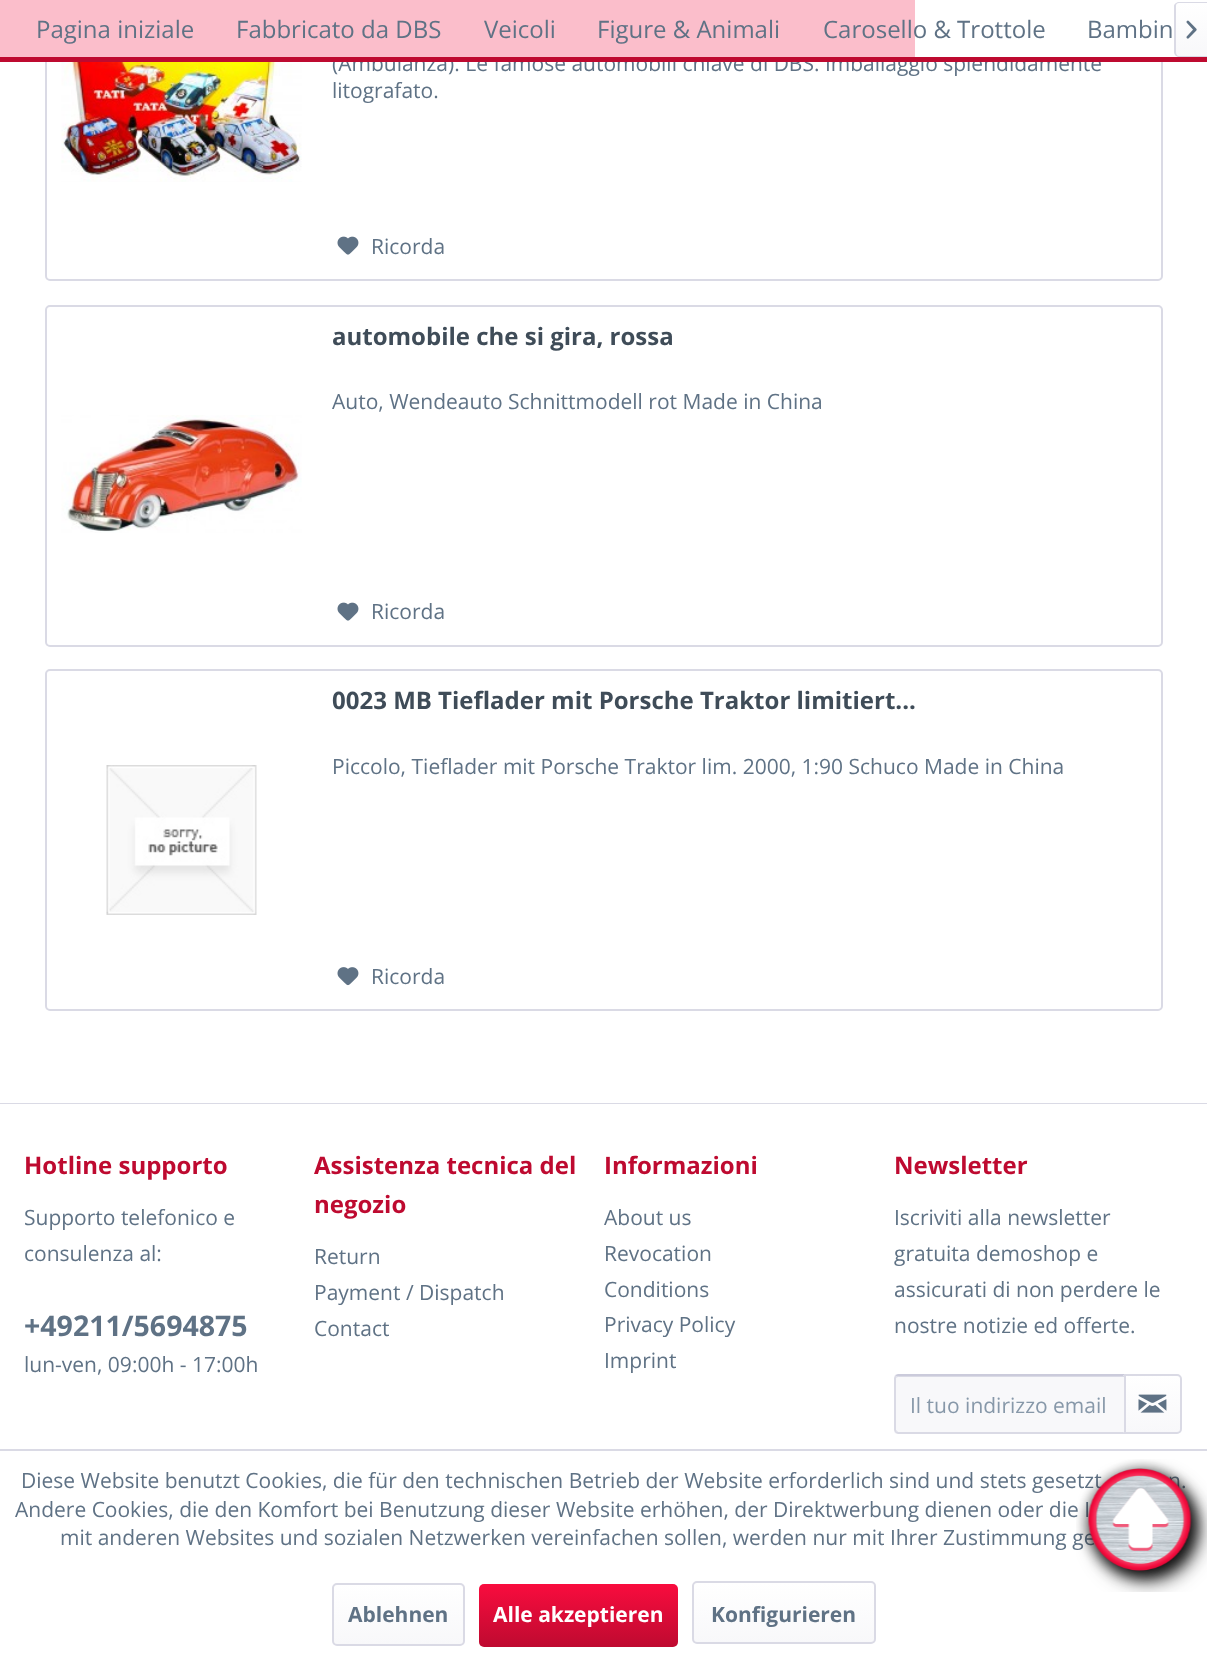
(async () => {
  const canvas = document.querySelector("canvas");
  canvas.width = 1207;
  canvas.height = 1661;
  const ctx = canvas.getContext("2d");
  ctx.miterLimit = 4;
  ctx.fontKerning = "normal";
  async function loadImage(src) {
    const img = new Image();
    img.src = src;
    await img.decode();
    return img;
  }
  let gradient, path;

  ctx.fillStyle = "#ffffff";
  ctx.fillRect(0, 0, 1207, 1661);
  gradient = ctx.createLinearGradient(1192, 3, 1192, 56);
  gradient.addColorStop(0, "#ffffff");
  gradient.addColorStop(1, "#f8f8fa");
  ctx.fillStyle = gradient;
  path = new Path2D("M1179 3H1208V56H1179C1177.5 56 1176 54.5 1176 53V6C1176 4.5 1177.5 3 1179 3Z");
  ctx.fill(path);
  ctx.fillStyle = "#dadae5";
  path = new Path2D("M1179 2H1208V57H1179C1177 57 1174 55 1174 52V6C1174 4 1177 2 1179 2ZM1179 3H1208V56H1179C1177 56 1176 54 1176 52V6C1176 4 1177 3 1179 3Z");
  ctx.fill(path, "evenodd");
  ctx.drawImage(await loadImage("img/1.png"), 1186, 20, 11, 19);
  ctx.beginPath();
  ctx.roundRect(46, -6, 1116, 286, 4);
  ctx.strokeStyle = "#dadae5";
  ctx.lineWidth = 2;
  ctx.stroke();
  ctx.drawImage(await loadImage("img/2.png"), 61, 62, 241, 120);
  ctx.drawImage(await loadImage("img/3.png"), 337, 236, 22, 19);
  ctx.beginPath();
  ctx.roundRect(46, 306, 1116, 340, 4);
  ctx.stroke();
  ctx.drawImage(await loadImage("img/4.png"), 61, 415, 241, 118);
  ctx.drawImage(await loadImage("img/3.png"), 337, 602, 22, 19);
  ctx.beginPath();
  ctx.roundRect(46, 670, 1116, 340, 4);
  ctx.stroke();
  ctx.drawImage(await loadImage("img/5.png"), 106, 765, 151, 150);
  ctx.drawImage(await loadImage("img/6.png"), 337, 967, 22, 19);
  ctx.fillRect(0, 1103, 1207, 1);
  ctx.fillStyle = "#f8f8fa";
  ctx.beginPath();
  ctx.roundRect(896, 1376, 228, 57, [3, 0, 0, 3]);
  ctx.fill();
  ctx.fillStyle = "#dadae5";
  path = new Path2D("M898 1377H1124V1376H899C897 1376 896 1378 896 1380C896 1378 897 1377 898 1377Z");
  ctx.fill(path);
  ctx.fillStyle = "#cbcbdb";
  path = new Path2D("M898 1374L895 1375L897 1377L898 1376H1123L1125 1374Z");
  ctx.fill(path);
  ctx.fillStyle = "#dadae5";
  path = new Path2D("M1125 1374L1123 1376H1124V1432H1123L1125 1434Z");
  ctx.fill(path);
  path = new Path2D("M1125 1434L1123 1432H898L897 1431L895 1433L898 1434Z");
  ctx.fill(path);
  path = new Path2D("M894 1378V1430L895 1433L897 1431L896 1430V1378L897 1377L895 1375Z");
  ctx.fill(path);
  gradient = ctx.createLinearGradient(1153, 1376, 1153, 1433);
  gradient.addColorStop(0, "#ffffff");
  gradient.addColorStop(1, "#f8f8fa");
  ctx.fillStyle = gradient;
  ctx.beginPath();
  ctx.roundRect(1125, 1376, 56, 57, [0, 3, 3, 0]);
  ctx.fill();
  ctx.beginPath();
  ctx.roundRect(1125, 1375, 56, 58, [0, 4, 4, 0]);
  ctx.stroke();
  ctx.drawImage(await loadImage("img/7.png"), 1138, 1394, 29, 19);
  ctx.fillStyle = "#dadae5";
  ctx.fillRect(0, 1449, 1207, 2);
  gradient = ctx.createLinearGradient(398, 1584, 398, 1644);
  gradient.addColorStop(0, "#ffffff");
  gradient.addColorStop(1, "#f8f8fa");
  ctx.fillStyle = gradient;
  ctx.beginPath();
  ctx.roundRect(333, 1584, 131, 60, 3);
  ctx.fill();
  ctx.beginPath();
  ctx.roundRect(333, 1584, 131, 61, 4);
  ctx.stroke();
  gradient = ctx.createLinearGradient(578, 1584, 578, 1647);
  gradient.addColorStop(0, "#f90c3e");
  gradient.addColorStop(1, "#be0a30");
  ctx.fillStyle = gradient;
  ctx.beginPath();
  ctx.roundRect(479, 1584, 199, 63, 5);
  ctx.fill();
  gradient = ctx.createLinearGradient(784, 1583, 784, 1643);
  gradient.addColorStop(0, "#ffffff");
  gradient.addColorStop(1, "#f8f8fa");
  ctx.fillStyle = gradient;
  ctx.beginPath();
  ctx.roundRect(693, 1583, 182, 60, 3);
  ctx.fill();
  ctx.beginPath();
  ctx.roundRect(693, 1582, 182, 61, 4);
  ctx.stroke();
  ctx.font = "21px Open Sans";
  ctx.fillStyle = "#5f7285";
  ctx.fillText("(Ambulanza). Le famose automobili chiave di DBS. Imballaggio splendidamente", 332, 71);
  ctx.fillStyle = "#ffffff";
  ctx.fillRect(921, 0, 242, 57);
  ctx.font = "24px Open Sans";
  ctx.fillStyle = "#5f7285";
  ctx.fillText("Bambin", 1087, 38);
  ctx.fillStyle = "#fbbecb";
  ctx.fillRect(0, 0, 915, 57);
  ctx.fillStyle = "#5f7285";
  for (const [text, x, y] of [
    ["Carosello & Trottole", 823, 38],
    ["Figure & Animali", 597, 38],
    ["Veicoli", 484, 38],
    ["Fabbricato da DBS", 236, 38],
    ["Pagina iniziale", 36, 38],
  ]) {
    ctx.fillText(text, x, y);
  }
  ctx.fillStyle = "#be0a30";
  ctx.fillRect(0, 57, 1207, 5);
  ctx.font = "21px Open Sans";
  ctx.fillStyle = "#5f7285";
  ctx.fillText("litografato.", 332, 98);
  ctx.fillText("Ricorda", 371, 254);
  ctx.font = "bold 24px Open Sans";
  ctx.fillStyle = "#3f4c58";
  ctx.fillText("automobile che si gira, rossa", 332, 345);
  ctx.font = "21px Open Sans";
  ctx.fillStyle = "#5f7285";
  ctx.fillText("Auto, Wendeauto Schnittmodell rot Made in China", 332, 409);
  ctx.fillText("Ricorda", 371, 619);
  ctx.font = "bold 24px Open Sans";
  ctx.fillStyle = "#3f4c58";
  ctx.fillText("0023 MB Tieflader mit Porsche Traktor limitiert...", 332, 709);
  ctx.font = "21px Open Sans";
  ctx.fillStyle = "#5f7285";
  ctx.fillText("Piccolo, Tieflader mit Porsche Traktor lim. 2000, 1:90 Schuco Made in China", 332, 774);
  ctx.fillText("Ricorda", 371, 984);
  ctx.font = "bold 24px Open Sans";
  ctx.fillStyle = "#be0a30";
  ctx.fillText("Hotline supporto", 24, 1174);
  ctx.font = "21px Open Sans";
  ctx.fillStyle = "#5f7285";
  ctx.fillText("Supporto telefonico e", 24, 1225);
  ctx.fillText("consulenza al:", 24, 1261);
  ctx.font = "bold 28.5px Open Sans";
  ctx.fillText("+49211/5694875", 24, 1336);
  ctx.font = "21px Open Sans";
  ctx.fillText("lun-ven, 09:00h - 17:00h", 24, 1372);
  ctx.font = "bold 24px Open Sans";
  ctx.fillStyle = "#be0a30";
  ctx.fillText("Assistenza tecnica del", 314, 1174);
  ctx.fillText("negozio", 314, 1213);
  ctx.font = "21px Open Sans";
  ctx.fillStyle = "#5f7285";
  for (const [text, x, y] of [
    ["Return", 314, 1264],
    ["Payment / Dispatch", 314, 1300],
    ["Contact", 314, 1336],
  ]) {
    ctx.fillText(text, x, y);
  }
  ctx.font = "bold 24px Open Sans";
  ctx.fillStyle = "#be0a30";
  ctx.fillText("Informazioni", 604, 1174);
  ctx.font = "21px Open Sans";
  ctx.fillStyle = "#5f7285";
  for (const [text, x, y] of [
    ["About us", 604, 1225],
    ["Revocation", 604, 1261],
    ["Conditions", 604, 1297],
    ["Privacy Policy", 604, 1332],
    ["Imprint", 604, 1368],
  ]) {
    ctx.fillText(text, x, y);
  }
  ctx.font = "bold 24px Open Sans";
  ctx.fillStyle = "#be0a30";
  ctx.fillText("Newsletter", 894, 1174);
  ctx.font = "21px Open Sans";
  ctx.fillStyle = "#5f7285";
  for (const [text, x, y] of [
    ["Iscriviti alla newsletter", 894, 1225],
    ["gratuita demoshop e", 894, 1261],
    ["assicurati di non perdere le", 894, 1297],
    ["nostre notizie ed offerte.", 894, 1333],
  ]) {
    ctx.fillText(text, x, y);
  }
  ctx.fillStyle = "#8798a9";
  ctx.fillText("Il tuo indirizzo email", 910, 1413);
  ctx.fillStyle = "#5f7285";
  for (const [text, x, y] of [
    ["Diese Website benutzt Cookies, die für den technischen Betrieb der Website erforderlich sind und stets gesetzt", 21, 1488],
    ["n.", 1168, 1488],
    ["Andere Cookies, die den Komfort bei Benutzung dieser Website erhöhen, der Direktwerbung dienen oder die I", 15, 1517],
    ["mit anderen Websites und sozialen Netzwerken vereinfachen sollen, werden nur mit Ihrer Zustimmung ge", 60, 1545],
  ]) {
    ctx.fillText(text, x, y);
  }
  ctx.drawImage(await loadImage("img/8.png"), 1076, 1459, 131, 133);
  ctx.font = "bold 21px Open Sans";
  ctx.fillText("Ablehnen", 348, 1622);
  ctx.fillStyle = "#ffffff";
  ctx.fillText("Alle akzeptieren", 493, 1622);
  ctx.fillStyle = "#5f7285";
  ctx.fillText("Konfigurieren", 711, 1622);
})();
